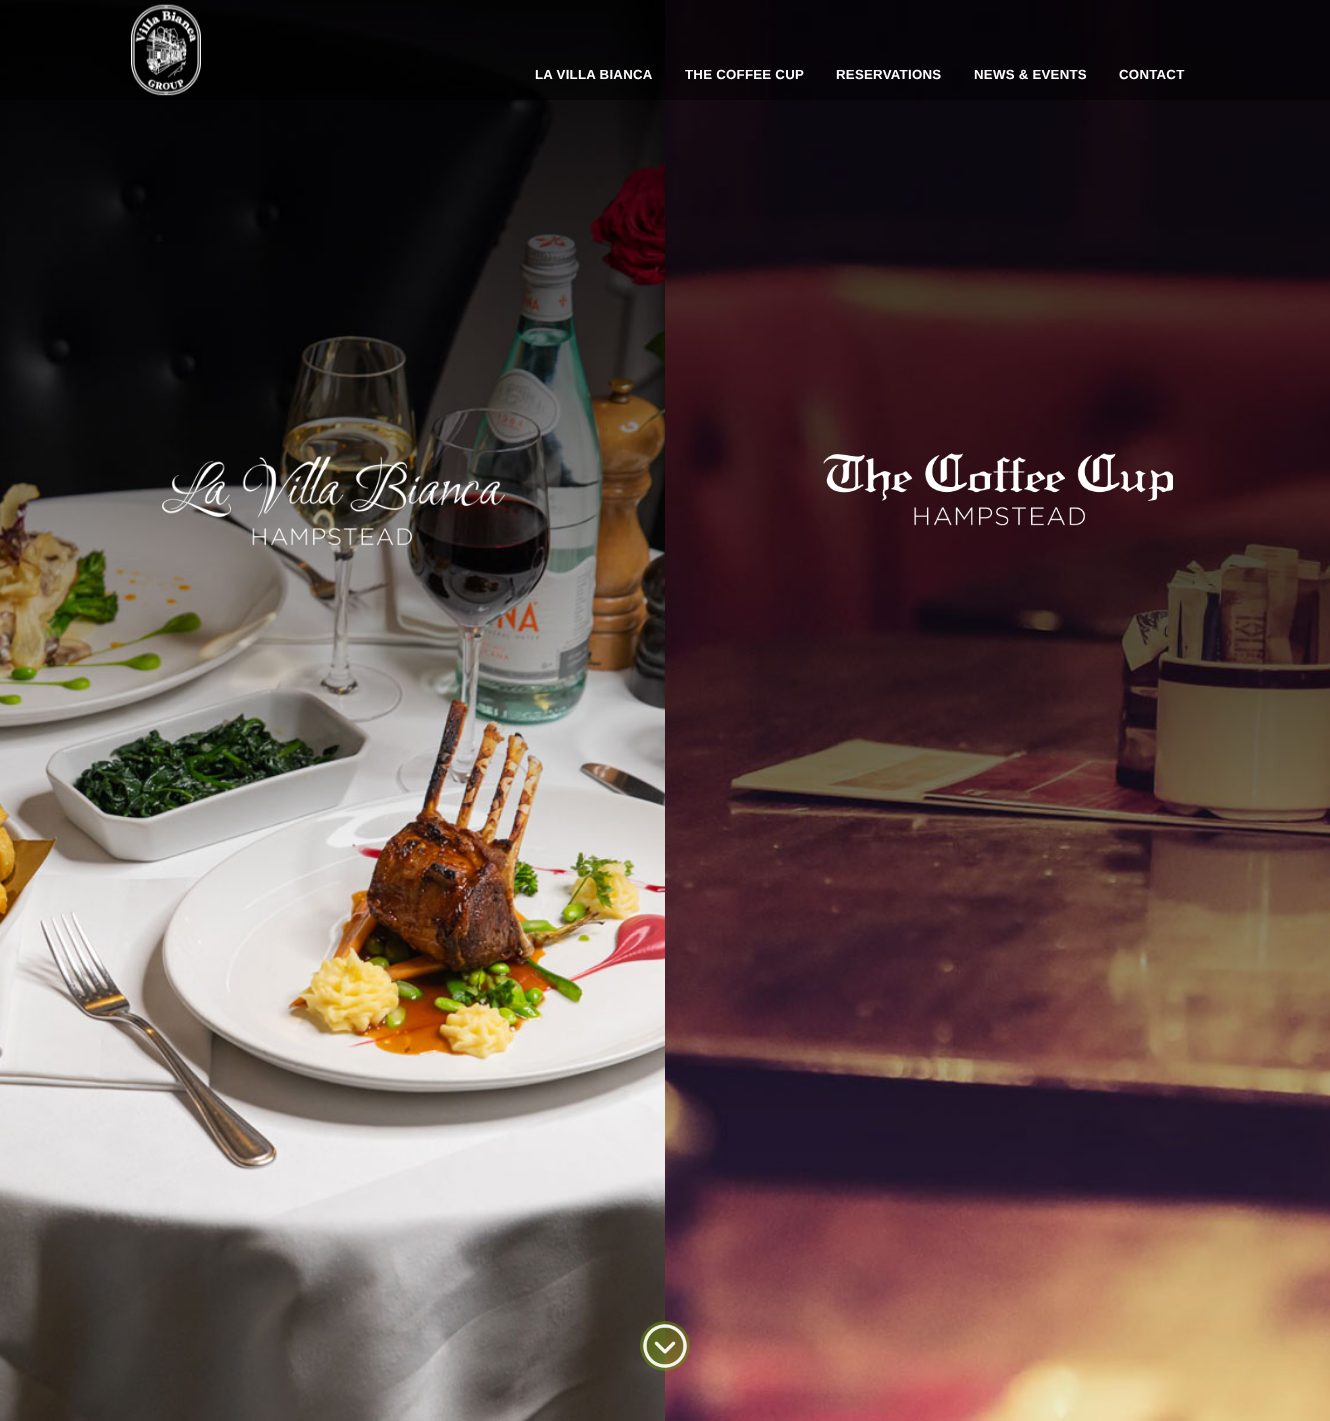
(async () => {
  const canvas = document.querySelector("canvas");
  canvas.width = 1330;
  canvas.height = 1421;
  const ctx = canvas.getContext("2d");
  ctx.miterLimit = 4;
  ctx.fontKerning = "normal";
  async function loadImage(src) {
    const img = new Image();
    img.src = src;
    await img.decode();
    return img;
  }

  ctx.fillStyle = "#ffffff";
  ctx.fillRect(0, 0, 1330, 1421);
  ctx.drawImage(await loadImage("img/1.png"), 0, 0, 665, 1421);
  ctx.drawImage(await loadImage("img/2.png"), 162, 456, 343, 90);
  ctx.drawImage(await loadImage("img/3.png"), 665, 0, 665, 1421);
  ctx.drawImage(await loadImage("img/4.png"), 823, 453, 350, 73);
  ctx.fillStyle = "rgba(110, 141, 8, 0.52)";
  ctx.beginPath();
  ctx.arc(665, 1346, 25, 0, Math.PI * 2);
  ctx.fill();
  ctx.drawImage(await loadImage("img/5.png"), 643, 1324, 44, 44);
  ctx.fillStyle = "rgba(0, 0, 0, 0.45)";
  ctx.fillRect(0, 0, 1330, 100);
  ctx.drawImage(await loadImage("img/6.png"), 131, 4, 70, 92);
  ctx.letterSpacing = "0.25px";
  ctx.font = "bold 13.25px Liberation Sans";
  ctx.fillStyle = "#ffffff";
  for (const [text, x, y] of [
    ["LA VILLA BIANCA", 535, 79],
    ["THE COFFEE CUP", 685, 79],
    ["RESERVATIONS", 836, 79],
    ["NEWS & EVENTS", 974, 79],
    ["CONTACT", 1119, 79],
  ]) {
    ctx.fillText(text, x, y);
  }
})();
